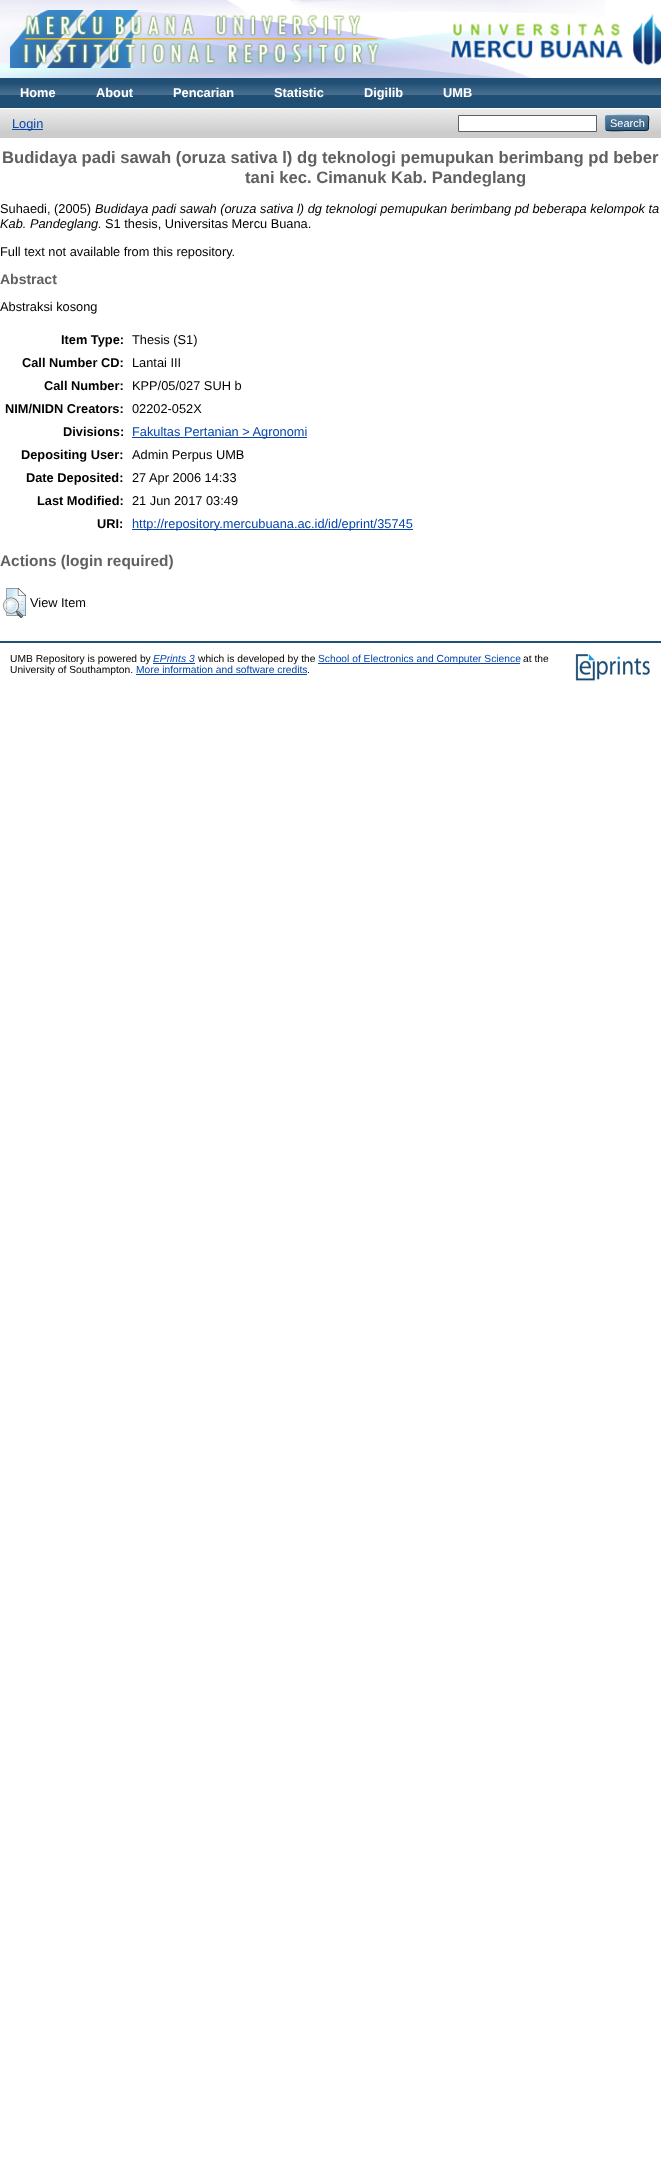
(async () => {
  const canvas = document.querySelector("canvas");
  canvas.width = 661;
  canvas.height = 2176;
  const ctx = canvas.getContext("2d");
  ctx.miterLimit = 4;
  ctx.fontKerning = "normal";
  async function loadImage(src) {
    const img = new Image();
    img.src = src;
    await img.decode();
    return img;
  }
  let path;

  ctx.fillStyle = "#ffffff";
  ctx.fillRect(0, 0, 661, 2176);
  ctx.drawImage(await loadImage("img/1.png"), 0, 0, 605, 78);
  ctx.drawImage(await loadImage("img/2.png"), 10, 10, 651, 58);
  ctx.fillStyle = "#204f76";
  ctx.fillRect(0, 78, 661, 30);
  ctx.drawImage(await loadImage("img/3.png"), 0, 84, 661, 11);
  ctx.fillStyle = "#cccccc";
  ctx.fillRect(0, 109, 661, 29);
  ctx.drawImage(await loadImage("img/4.png"), 0, 109, 661, 22);
  ctx.fillStyle = "#0645ad";
  ctx.fillRect(12, 129, 31, 1);
  ctx.fillStyle = "#ffffff";
  ctx.beginPath();
  ctx.rect(458.5, 115.5, 138, 16);
  ctx.fill();
  ctx.strokeStyle = "#606060";
  ctx.stroke();
  ctx.fillStyle = "#1f4f76";
  ctx.beginPath();
  ctx.roundRect(605, 115, 44, 16, 3);
  ctx.fill();
  ctx.drawImage(await loadImage("img/5.png"), 605, 115, 44, 16);
  path = new Path2D("M606 116C607.5 115 646.5 115 648 116");
  ctx.strokeStyle = "#5b97c7";
  ctx.stroke(path);
  path = new Path2D("M648 116C649.5 118 648.5 121 648.5 123C648.5 131.5 649 130.5 639.5 130.5H627C624 130.5 608 131.5 606 130");
  ctx.strokeStyle = "#0d2131";
  ctx.stroke(path);
  path = new Path2D("M606 130C605 128.5 605.5 124.5 605.5 123C605.5 121.5 605 117.5 606 116");
  ctx.strokeStyle = "#5287b3";
  ctx.stroke(path);
  ctx.fillStyle = "#0645ad";
  ctx.fillRect(132, 437, 175, 1);
  ctx.fillRect(132, 529, 281, 1);
  ctx.drawImage(await loadImage("img/6.png"), 3, 588, 23, 30);
  for (const [x, y, w, h, color] of [
    [0, 641, 661, 2, "#204f76"],
    [153, 663, 42, 1, "#0645ad"],
    [318, 663, 202, 1, "#0645ad"],
    [136, 674, 171, 1, "#0645ad"],
  ]) {
    ctx.fillStyle = color;
    ctx.fillRect(x, y, w, h);
  }
  ctx.drawImage(await loadImage("img/7.png"), 574, 654, 76, 28);
  ctx.font = "bold 12.8px Liberation Sans";
  ctx.fillStyle = "#ffffff";
  for (const [text, x, y] of [
    ["Home", 20, 97],
    ["About", 96, 97],
    ["Pencarian", 173, 97],
    ["Statistic", 274, 97],
    ["Digilib", 364, 97],
    ["UMB", 443, 97],
  ]) {
    ctx.fillText(text, x, y);
  }
  ctx.font = "12.8px Liberation Sans";
  ctx.fillStyle = "#0645ad";
  ctx.fillText("Login", 12, 128);
  ctx.font = "11px Liberation Sans";
  ctx.fillStyle = "#ffffff";
  ctx.fillText("Search", 610, 127);
  ctx.font = "bold 16.65px Liberation Sans";
  ctx.fillStyle = "#606060";
  ctx.fillText("Budidaya padi sawah (oruza sativa l) dg teknologi pemupukan berimbang pd beber", 2, 163);
  ctx.fillText("tani kec. Cimanuk Kab. Pandeglang", 245, 183);
  ctx.font = "12.8px Liberation Sans";
  ctx.fillStyle = "#000000";
  ctx.fillText("Suhaedi, (2005)", 0, 213);
  ctx.font = "italic 12.8px Liberation Sans";
  ctx.fillText("Budidaya padi sawah (oruza sativa l) dg teknologi pemupukan berimbang pd beberapa kelompok ta", 95, 213);
  ctx.fillText("Kab. Pandeglang.", 0, 228);
  ctx.font = "12.8px Liberation Sans";
  ctx.fillText("S1 thesis, Universitas Mercu Buana.", 105, 228);
  ctx.fillText("Full text not available from this repository.", 0, 256);
  ctx.font = "bold 14px Liberation Sans";
  ctx.fillStyle = "#606060";
  ctx.fillText("Abstract", 0, 284);
  ctx.font = "12.8px Liberation Sans";
  ctx.fillStyle = "#000000";
  ctx.fillText("Abstraksi kosong", 0, 311);
  ctx.font = "bold 12.8px Liberation Sans";
  ctx.fillText("Item Type:", 61, 344);
  ctx.font = "12.8px Liberation Sans";
  ctx.fillText("Thesis (S1)", 132, 344);
  ctx.font = "bold 12.8px Liberation Sans";
  ctx.fillText("Call Number CD:", 22, 367);
  ctx.font = "12.8px Liberation Sans";
  ctx.fillText("Lantai III", 132, 367);
  ctx.font = "bold 12.8px Liberation Sans";
  ctx.fillText("Call Number:", 44, 390);
  ctx.font = "12.8px Liberation Sans";
  ctx.fillText("KPP/05/027 SUH b", 132, 390);
  ctx.font = "bold 12.8px Liberation Sans";
  ctx.fillText("NIM/NIDN Creators:", 5, 413);
  ctx.font = "12.8px Liberation Sans";
  ctx.fillText("02202-052X", 132, 413);
  ctx.font = "bold 12.8px Liberation Sans";
  ctx.fillText("Divisions:", 63, 436);
  ctx.font = "12.8px Liberation Sans";
  ctx.fillStyle = "#0645ad";
  ctx.fillText("Fakultas Pertanian > Agronomi", 132, 436);
  ctx.font = "bold 12.8px Liberation Sans";
  ctx.fillStyle = "#000000";
  ctx.fillText("Depositing User:", 21, 459);
  ctx.font = "12.8px Liberation Sans";
  ctx.fillText("Admin Perpus UMB", 132, 459);
  ctx.font = "bold 12.8px Liberation Sans";
  ctx.fillText("Date Deposited:", 26, 482);
  ctx.font = "12.8px Liberation Sans";
  ctx.fillText("27 Apr 2006 14:33", 132, 482);
  ctx.font = "bold 12.8px Liberation Sans";
  ctx.fillText("Last Modified:", 37, 505);
  ctx.font = "12.8px Liberation Sans";
  ctx.fillText("21 Jun 2017 03:49", 132, 505);
  ctx.font = "bold 12.8px Liberation Sans";
  ctx.fillText("URI:", 97, 528);
  ctx.font = "12.8px Liberation Sans";
  ctx.fillStyle = "#0645ad";
  ctx.fillText("http://repository.mercubuana.ac.id/id/eprint/35745", 132, 528);
  ctx.font = "bold 15.4px Liberation Sans";
  ctx.fillStyle = "#606060";
  ctx.fillText("Actions (login required)", 0, 566);
  ctx.font = "12.8px Liberation Sans";
  ctx.fillStyle = "#000000";
  ctx.fillText("View Item", 30, 607);
  ctx.font = "10.25px Liberation Sans";
  ctx.fillText("UMB Repository is powered by", 10, 662);
  ctx.font = "italic 10.25px Liberation Sans";
  ctx.fillStyle = "#0645ad";
  ctx.fillText("EPrints 3", 153, 662);
  ctx.font = "10.25px Liberation Sans";
  ctx.fillStyle = "#000000";
  ctx.fillText("which is developed by the", 198, 662);
  ctx.fillStyle = "#0645ad";
  ctx.fillText("School of Electronics and Computer Science", 318, 662);
  ctx.fillStyle = "#000000";
  ctx.fillText("at the", 523, 662);
  ctx.fillText("University of Southampton.", 10, 673);
  ctx.fillStyle = "#0645ad";
  ctx.fillText("More information and software credits", 136, 673);
  ctx.fillStyle = "#000000";
  ctx.fillText(".", 307, 673);
})();
